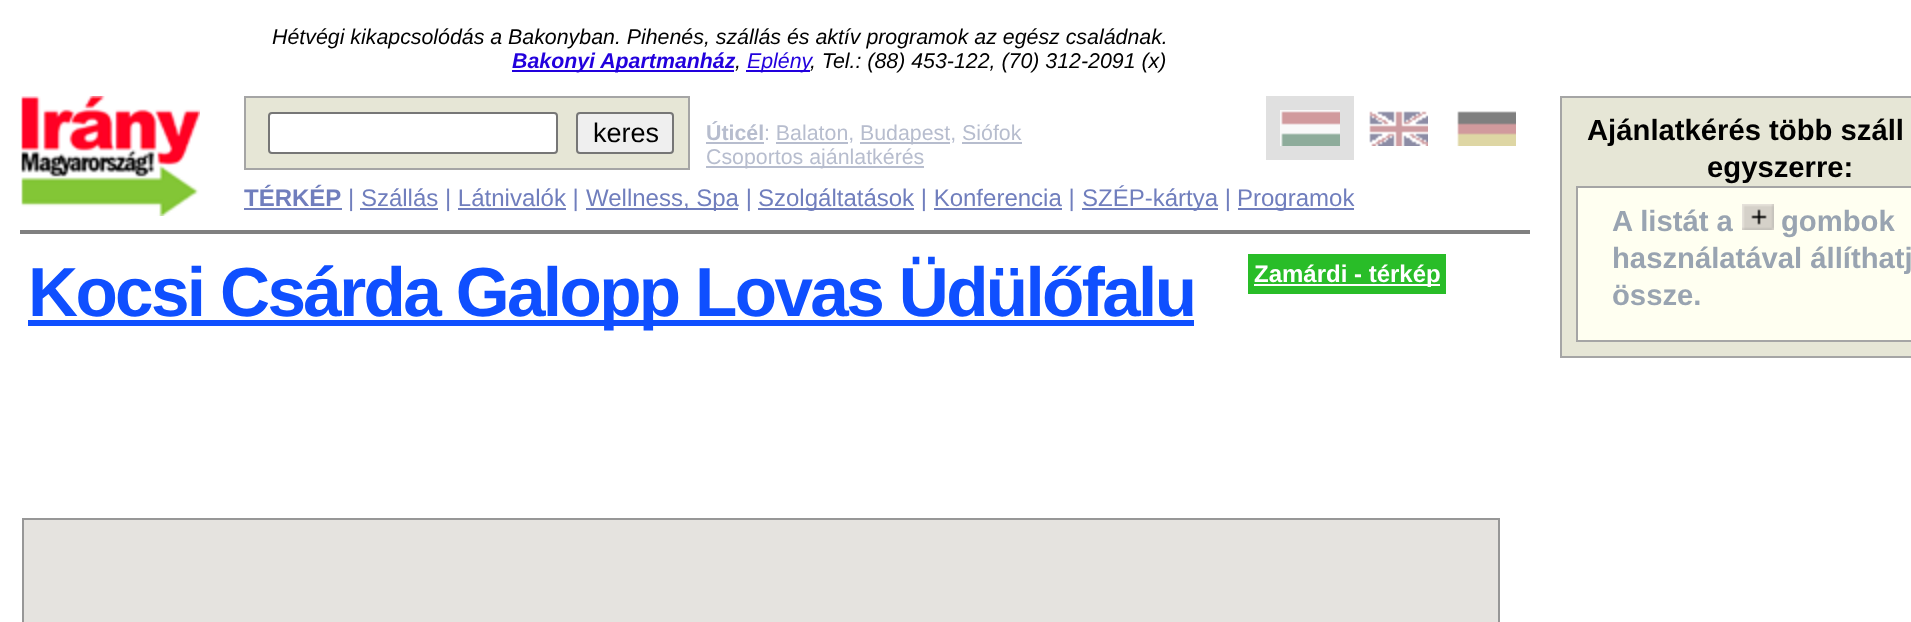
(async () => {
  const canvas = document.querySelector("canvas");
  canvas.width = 1911;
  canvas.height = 622;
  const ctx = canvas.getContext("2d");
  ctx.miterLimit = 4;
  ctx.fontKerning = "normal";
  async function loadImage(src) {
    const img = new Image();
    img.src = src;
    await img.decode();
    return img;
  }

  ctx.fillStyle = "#ffffff";
  ctx.fillRect(0, 0, 1911, 622);
  ctx.fillStyle = "#2200dd";
  ctx.fillRect(512, 70, 222, 2);
  ctx.fillRect(746, 70, 64, 2);
  ctx.drawImage(await loadImage("img/1.png"), 21, 96, 179, 120);
  ctx.fillStyle = "#e6e6d6";
  ctx.beginPath();
  ctx.rect(245, 97, 444, 72);
  ctx.fill();
  ctx.strokeStyle = "#a5a5a5";
  ctx.lineWidth = 2;
  ctx.stroke();
  ctx.fillStyle = "#ffffff";
  ctx.beginPath();
  ctx.roundRect(269, 113, 288, 40, 3);
  ctx.fill();
  ctx.strokeStyle = "#767676";
  ctx.stroke();
  ctx.fillStyle = "#efefef";
  ctx.beginPath();
  ctx.roundRect(577, 113, 96, 40, 3);
  ctx.fill();
  ctx.stroke();
  for (const [x, y, w, h, color] of [
    [706, 142, 58, 2, "#b7bdce"],
    [776, 142, 72, 2, "#b7bdce"],
    [860, 142, 90, 2, "#b7bdce"],
    [962, 142, 60, 2, "#b7bdce"],
    [706, 166, 218, 2, "#b7bdce"],
    [1266, 96, 88, 64, "#e0e0e0"],
  ]) {
    ctx.fillStyle = color;
    ctx.fillRect(x, y, w, h);
  }
  ctx.drawImage(await loadImage("img/2.png"), 1280, 110, 60, 36);
  ctx.drawImage(await loadImage("img/3.png"), 1369, 111, 59, 35);
  ctx.drawImage(await loadImage("img/4.png"), 1457, 111, 59, 35);
  for (const [x, y, w, h, color] of [
    [244, 208, 98, 2, "#707ebd"],
    [360, 208, 78, 2, "#707ebd"],
    [458, 208, 108, 2, "#707ebd"],
    [586, 208, 152, 2, "#707ebd"],
    [758, 208, 156, 2, "#707ebd"],
    [934, 208, 128, 2, "#707ebd"],
    [1082, 208, 136, 2, "#707ebd"],
    [1238, 208, 116, 2, "#707ebd"],
    [20, 230, 1510, 4, "#808080"],
    [28, 320, 1166, 6, "#0f4fff"],
    [1248, 254, 198, 40, "#29bd28"],
    [1254, 284, 186, 2, "#ffffff"],
  ]) {
    ctx.fillStyle = color;
    ctx.fillRect(x, y, w, h);
  }
  ctx.strokeStyle = "#979797";
  ctx.strokeRect(23, 519, 1476, 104);
  for (const [x, y, w, h, color] of [
    [24, 520, 1474, 102, "#e5e3df"],
    [1560, 96, 351, 262, "#a5a5a5"],
    [1562, 98, 349, 258, "#e6e6d6"],
    [1576, 186, 335, 156, "#a5a5a5"],
    [1578, 188, 333, 152, "#fffff1"],
  ]) {
    ctx.fillStyle = color;
    ctx.fillRect(x, y, w, h);
  }
  ctx.drawImage(await loadImage("img/5.png"), 1742, 204, 32, 26);
  ctx.font = "italic 21.35px Liberation Sans";
  ctx.fillStyle = "#000000";
  ctx.fillText("Hétvégi kikapcsolódás a Bakonyban. Pihenés, szállás és aktív programok az egész családnak.", 272, 44);
  ctx.font = "italic bold 21.35px Liberation Sans";
  ctx.fillStyle = "#2200dd";
  ctx.fillText("Bakonyi Apartmanház", 512, 68);
  ctx.font = "italic 21.35px Liberation Sans";
  ctx.fillStyle = "#000000";
  ctx.fillText(",", 735, 68);
  ctx.fillStyle = "#2200dd";
  ctx.fillText("Eplény", 747, 68);
  ctx.fillStyle = "#000000";
  ctx.fillText(", Tel.: (88) 453-122, (70) 312-2091 (x)", 810, 68);
  ctx.font = "27px Liberation Sans";
  ctx.fillText("keres", 593, 142);
  ctx.font = "bold 21.35px Liberation Sans";
  ctx.fillStyle = "#b7bdce";
  ctx.fillText("Úticél", 706, 140);
  ctx.font = "21.35px Liberation Sans";
  for (const [text, x, y] of [
    [": Balaton,", 764, 140],
    ["Budapest, Siófok", 860, 140],
    ["Csoportos ajánlatkérés", 706, 164],
  ]) {
    ctx.fillText(text, x, y);
  }
  ctx.font = "bold 24px Liberation Sans";
  ctx.fillStyle = "#707ebd";
  ctx.fillText("TÉRKÉP", 244, 206);
  ctx.font = "24px Liberation Sans";
  for (const [text, x, y] of [
    ["| Szállás | Látnivalók |", 348, 206],
    ["Wellness, Spa |", 586, 206],
    ["Szolgáltatások | Konferencia |", 758, 206],
    ["SZÉP-kártya |", 1082, 206],
    ["Programok", 1237, 206],
  ]) {
    ctx.fillText(text, x, y);
  }
  ctx.letterSpacing = "-2.65px";
  ctx.font = "bold 69.3px Liberation Sans";
  ctx.fillStyle = "#0f4fff";
  ctx.fillText("Kocsi Csárda Galopp Lovas Üdülőfalu", 28, 316);
  ctx.letterSpacing = "0px";
  ctx.font = "bold 24px Liberation Sans";
  ctx.fillStyle = "#ffffff";
  ctx.fillText("Zamárdi - térkép", 1254, 282);
  ctx.font = "bold 29.25px Liberation Sans";
  ctx.fillStyle = "#000000";
  ctx.fillText("Ajánlatkérés több száll", 1587, 140);
  ctx.fillText("egyszerre:", 1707, 177);
  ctx.fillStyle = "#99a4b1";
  for (const [text, x, y] of [
    ["A listát a", 1612, 231],
    ["gombok", 1781, 231],
    ["használatával állíthatj", 1612, 268],
    ["össze.", 1612, 305],
  ]) {
    ctx.fillText(text, x, y);
  }
})();
